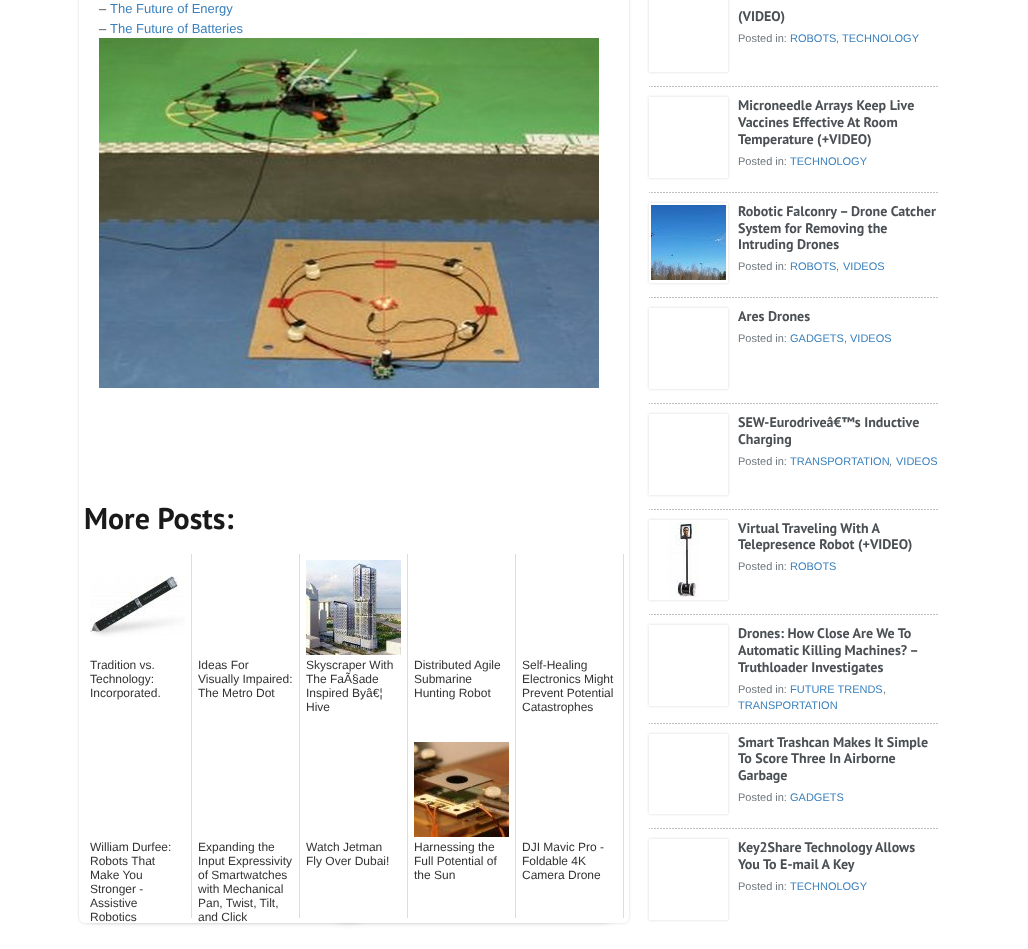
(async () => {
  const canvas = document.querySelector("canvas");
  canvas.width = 1028;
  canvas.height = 949;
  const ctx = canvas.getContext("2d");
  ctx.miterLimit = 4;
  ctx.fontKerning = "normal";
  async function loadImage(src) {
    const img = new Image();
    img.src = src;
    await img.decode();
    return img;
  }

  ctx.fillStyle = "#ffffff";
  ctx.fillRect(0, 0, 1028, 949);
  ctx.fillStyle = "rgba(0, 0, 0, 0.15)";
  ctx.filter = "blur(1.5px)";
  ctx.beginPath();
  ctx.roundRect(79, -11, 550, 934, 6);
  ctx.fill();
  ctx.filter = "none";
  ctx.fillStyle = "rgba(0, 0, 0, 0.5)";
  ctx.filter = "blur(5px)";
  ctx.beginPath();
  ctx.rect(89, 898, 270, 20);
  ctx.fill();
  ctx.filter = "none";
  ctx.filter = "blur(5px)";
  ctx.beginPath();
  ctx.rect(339, 898, 270, 20);
  ctx.fill();
  ctx.filter = "none";
  ctx.fillStyle = "#ffffff";
  ctx.beginPath();
  ctx.roundRect(79, -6, 550, 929, 6);
  ctx.fill();
  ctx.drawImage(await loadImage("img/1.png"), 99, 38, 500, 350);
  ctx.fillStyle = "#dddddd";
  ctx.fillRect(191, 554, 1, 364);
  ctx.drawImage(await loadImage("img/2.png"), 90, 576, 95, 61);
  ctx.fillRect(299, 554, 1, 364);
  ctx.fillRect(407, 554, 1, 364);
  ctx.drawImage(await loadImage("img/3.png"), 306, 560, 95, 95);
  ctx.fillRect(515, 554, 1, 364);
  ctx.fillRect(623, 554, 1, 364);
  ctx.drawImage(await loadImage("img/4.png"), 414, 742, 95, 95);
  ctx.drawImage(await loadImage("img/5.png"), 649, 86, 289, 1);
  ctx.fillStyle = "rgba(0, 0, 0, 0.15)";
  ctx.filter = "blur(1.5px)";
  ctx.beginPath();
  ctx.rect(649, -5, 79, 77);
  ctx.fill();
  ctx.filter = "none";
  ctx.fillStyle = "#ffffff";
  ctx.fillRect(649, 0, 79, 72);
  ctx.drawImage(await loadImage("img/6.png"), 649, 192, 289, 1);
  ctx.fillStyle = "rgba(0, 0, 0, 0.15)";
  ctx.filter = "blur(1.5px)";
  ctx.beginPath();
  ctx.rect(649, 97, 79, 81);
  ctx.fill();
  ctx.filter = "none";
  ctx.fillStyle = "#ffffff";
  ctx.fillRect(649, 97, 79, 81);
  ctx.drawImage(await loadImage("img/7.png"), 649, 297, 289, 1);
  ctx.fillStyle = "rgba(0, 0, 0, 0.15)";
  ctx.filter = "blur(1.5px)";
  ctx.beginPath();
  ctx.rect(649, 203, 79, 80);
  ctx.fill();
  ctx.filter = "none";
  ctx.fillStyle = "#ffffff";
  ctx.fillRect(649, 203, 79, 80);
  ctx.drawImage(await loadImage("img/8.png"), 651, 205, 75, 75);
  ctx.drawImage(await loadImage("img/9.png"), 649, 403, 289, 1);
  ctx.fillStyle = "rgba(0, 0, 0, 0.15)";
  ctx.filter = "blur(1.5px)";
  ctx.beginPath();
  ctx.rect(649, 308, 79, 81);
  ctx.fill();
  ctx.filter = "none";
  ctx.fillStyle = "#ffffff";
  ctx.fillRect(649, 308, 79, 81);
  ctx.drawImage(await loadImage("img/10.png"), 649, 509, 289, 1);
  ctx.fillStyle = "rgba(0, 0, 0, 0.15)";
  ctx.filter = "blur(1.5px)";
  ctx.beginPath();
  ctx.rect(649, 414, 79, 81);
  ctx.fill();
  ctx.filter = "none";
  ctx.fillStyle = "#ffffff";
  ctx.fillRect(649, 414, 79, 81);
  ctx.drawImage(await loadImage("img/11.png"), 649, 614, 289, 1);
  ctx.fillStyle = "rgba(0, 0, 0, 0.15)";
  ctx.filter = "blur(1.5px)";
  ctx.beginPath();
  ctx.rect(649, 520, 79, 80);
  ctx.fill();
  ctx.filter = "none";
  ctx.fillStyle = "#ffffff";
  ctx.fillRect(649, 520, 79, 80);
  ctx.drawImage(await loadImage("img/12.png"), 667, 522, 32, 75);
  ctx.drawImage(await loadImage("img/13.png"), 649, 723, 289, 1);
  ctx.fillStyle = "rgba(0, 0, 0, 0.15)";
  ctx.filter = "blur(1.5px)";
  ctx.beginPath();
  ctx.rect(649, 625, 79, 81);
  ctx.fill();
  ctx.filter = "none";
  ctx.fillStyle = "#ffffff";
  ctx.fillRect(649, 625, 79, 81);
  ctx.drawImage(await loadImage("img/14.png"), 649, 828, 289, 1);
  ctx.fillStyle = "rgba(0, 0, 0, 0.15)";
  ctx.filter = "blur(1.5px)";
  ctx.beginPath();
  ctx.rect(649, 734, 79, 80);
  ctx.fill();
  ctx.filter = "none";
  ctx.fillStyle = "#ffffff";
  ctx.fillRect(649, 734, 79, 80);
  ctx.fillStyle = "rgba(0, 0, 0, 0.15)";
  ctx.filter = "blur(1.5px)";
  ctx.beginPath();
  ctx.rect(649, 839, 79, 81);
  ctx.fill();
  ctx.filter = "none";
  ctx.fillStyle = "#ffffff";
  ctx.fillRect(649, 839, 79, 81);
  ctx.font = "13px Liberation Sans";
  ctx.fillStyle = "#4b5054";
  ctx.fillText("–", 99, 13);
  ctx.fillStyle = "#3a80bc";
  ctx.fillText("The Future of Energy", 110, 13);
  ctx.fillStyle = "#4b5054";
  ctx.fillText("–", 99, 33);
  ctx.fillStyle = "#3a80bc";
  ctx.fillText("The Future of Batteries", 110, 33);
  ctx.font = "bold 30px PT Sans";
  ctx.fillStyle = "#1a1a1a";
  ctx.fillText("More Posts:", 84, 529);
  ctx.font = "12px Liberation Sans";
  ctx.fillStyle = "#333333";
  for (const [text, x, y] of [
    ["Tradition vs.", 90, 669],
    ["Technology:", 90, 683],
    ["Incorporated.", 90, 697],
    ["Ideas For", 198, 669],
    ["Visually Impaired:", 198, 683],
    ["The Metro Dot", 198, 697],
    ["Skyscraper With", 306, 669],
    ["The FaÃ§ade", 306, 683],
    ["Inspired Byâ€¦", 306, 697],
    ["Hive", 306, 711],
    ["Distributed Agile", 414, 669],
    ["Submarine", 414, 683],
    ["Hunting Robot", 414, 697],
    ["Self-Healing", 522, 669],
    ["Electronics Might", 522, 683],
    ["Prevent Potential", 522, 697],
    ["Catastrophes", 522, 711],
    ["William Durfee:", 90, 851],
    ["Robots That", 90, 865],
    ["Make You", 90, 879],
    ["Stronger -", 90, 893],
    ["Assistive", 90, 907],
    ["Robotics", 90, 921],
    ["Expanding the", 198, 851],
    ["Input Expressivity", 198, 865],
    ["of Smartwatches", 198, 879],
    ["with Mechanical", 198, 893],
    ["Pan, Twist, Tilt,", 198, 907],
    ["and Click", 198, 921],
    ["Watch Jetman", 306, 851],
    ["Fly Over Dubai!", 306, 865],
    ["Harnessing the", 414, 851],
    ["Full Potential of", 414, 865],
    ["the Sun", 414, 879],
    ["DJI Mavic Pro -", 522, 851],
    ["Foldable 4K", 522, 865],
    ["Camera Drone", 522, 879],
  ]) {
    ctx.fillText(text, x, y);
  }
  ctx.font = "bold 14px PT Sans";
  ctx.fillStyle = "#4b5054";
  ctx.fillText("(VIDEO)", 738, 21);
  ctx.font = "11px Liberation Sans";
  ctx.fillStyle = "#6f777d";
  ctx.fillText("Posted in:", 738, 42);
  ctx.fillStyle = "#3a80bc";
  ctx.fillText("ROBOTS", 790, 42);
  ctx.fillStyle = "#6f777d";
  ctx.fillText(",", 836, 42);
  ctx.fillStyle = "#3a80bc";
  ctx.fillText("TECHNOLOGY", 842, 42);
  ctx.font = "bold 14px PT Sans";
  ctx.fillStyle = "#4b5054";
  for (const [text, x, y] of [
    ["Microneedle Arrays Keep Live", 738, 110],
    ["Vaccines Effective At Room", 738, 127],
    ["Temperature (+VIDEO)", 738, 144],
  ]) {
    ctx.fillText(text, x, y);
  }
  ctx.font = "11px Liberation Sans";
  ctx.fillStyle = "#6f777d";
  ctx.fillText("Posted in:", 738, 165);
  ctx.fillStyle = "#3a80bc";
  ctx.fillText("TECHNOLOGY", 790, 165);
  ctx.font = "bold 14px PT Sans";
  ctx.fillStyle = "#4b5054";
  for (const [text, x, y] of [
    ["Robotic Falconry – Drone Catcher", 738, 216],
    ["System for Removing the", 738, 233],
    ["Intruding Drones", 738, 249],
  ]) {
    ctx.fillText(text, x, y);
  }
  ctx.font = "11px Liberation Sans";
  ctx.fillStyle = "#6f777d";
  ctx.fillText("Posted in:", 738, 270);
  ctx.fillStyle = "#3a80bc";
  ctx.fillText("ROBOTS", 790, 270);
  ctx.fillStyle = "#6f777d";
  ctx.fillText(",", 836, 270);
  ctx.fillStyle = "#3a80bc";
  ctx.fillText("VIDEOS", 843, 270);
  ctx.font = "bold 14px PT Sans";
  ctx.fillStyle = "#4b5054";
  ctx.fillText("Ares Drones", 738, 321);
  ctx.font = "11px Liberation Sans";
  ctx.fillStyle = "#6f777d";
  ctx.fillText("Posted in:", 738, 342);
  ctx.fillStyle = "#3a80bc";
  ctx.fillText("GADGETS", 790, 342);
  ctx.fillStyle = "#6f777d";
  ctx.fillText(",", 844, 342);
  ctx.fillStyle = "#3a80bc";
  ctx.fillText("VIDEOS", 850, 342);
  ctx.font = "bold 14px PT Sans";
  ctx.fillStyle = "#4b5054";
  ctx.fillText("SEW-Eurodriveâ€™s Inductive", 738, 427);
  ctx.fillText("Charging", 738, 444);
  ctx.font = "11px Liberation Sans";
  ctx.fillStyle = "#6f777d";
  ctx.fillText("Posted in:", 738, 465);
  ctx.fillStyle = "#3a80bc";
  ctx.fillText("TRANSPORTATION", 790, 465);
  ctx.fillStyle = "#6f777d";
  ctx.fillText(",", 889, 465);
  ctx.fillStyle = "#3a80bc";
  ctx.fillText("VIDEOS", 896, 465);
  ctx.font = "bold 14px PT Sans";
  ctx.fillStyle = "#4b5054";
  ctx.fillText("Virtual Traveling With A", 738, 533);
  ctx.fillText("Telepresence Robot (+VIDEO)", 738, 549);
  ctx.font = "11px Liberation Sans";
  ctx.fillStyle = "#6f777d";
  ctx.fillText("Posted in:", 738, 570);
  ctx.fillStyle = "#3a80bc";
  ctx.fillText("ROBOTS", 790, 570);
  ctx.font = "bold 14px PT Sans";
  ctx.fillStyle = "#4b5054";
  ctx.fillText("Drones: How Close Are We To", 738, 638);
  ctx.wordSpacing = "-0.5px";
  ctx.fillText("Automatic Killing Machines? –", 738, 655);
  ctx.wordSpacing = "0px";
  ctx.fillText("Truthloader Investigates", 738, 672);
  ctx.font = "11px Liberation Sans";
  ctx.fillStyle = "#6f777d";
  ctx.fillText("Posted in:", 738, 693);
  ctx.fillStyle = "#3a80bc";
  ctx.fillText("FUTURE TRENDS", 790, 693);
  ctx.fillStyle = "#6f777d";
  ctx.fillText(",", 883, 693);
  ctx.fillStyle = "#3a80bc";
  ctx.fillText("TRANSPORTATION", 738, 709);
  ctx.font = "bold 14px PT Sans";
  ctx.fillStyle = "#4b5054";
  for (const [text, x, y] of [
    ["Smart Trashcan Makes It Simple", 738, 747],
    ["To Score Three In Airborne", 738, 763],
    ["Garbage", 738, 780],
  ]) {
    ctx.fillText(text, x, y);
  }
  ctx.font = "11px Liberation Sans";
  ctx.fillStyle = "#6f777d";
  ctx.fillText("Posted in:", 738, 801);
  ctx.fillStyle = "#3a80bc";
  ctx.fillText("GADGETS", 790, 801);
  ctx.font = "bold 14px PT Sans";
  ctx.fillStyle = "#4b5054";
  ctx.fillText("Key2Share Technology Allows", 738, 852);
  ctx.fillText("You To E-mail A Key", 738, 869);
  ctx.font = "11px Liberation Sans";
  ctx.fillStyle = "#6f777d";
  ctx.fillText("Posted in:", 738, 890);
  ctx.fillStyle = "#3a80bc";
  ctx.fillText("TECHNOLOGY", 790, 890);
})();
